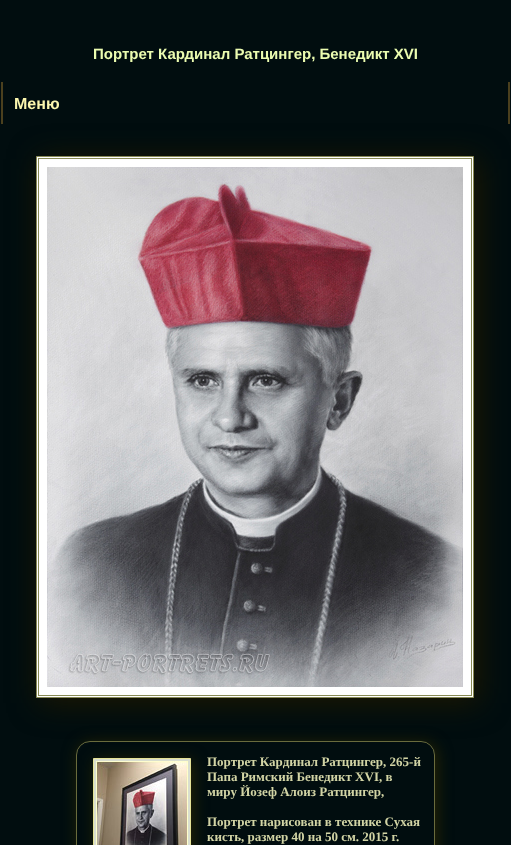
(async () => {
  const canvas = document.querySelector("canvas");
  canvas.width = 511;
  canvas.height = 845;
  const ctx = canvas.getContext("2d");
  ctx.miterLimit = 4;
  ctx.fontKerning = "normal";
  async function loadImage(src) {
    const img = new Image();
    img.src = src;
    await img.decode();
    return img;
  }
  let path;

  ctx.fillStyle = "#010d0f";
  ctx.fillRect(0, 0, 511, 845);
  ctx.fillStyle = "#4b401e";
  ctx.fillRect(508, 82, 2, 42);
  ctx.fillRect(1, 82, 2, 42);
  ctx.fillStyle = "#1d1801";
  ctx.filter = "blur(15px)";
  ctx.beginPath();
  ctx.rect(39, 159, 440, 544);
  ctx.fill();
  ctx.filter = "none";
  ctx.fillStyle = "#ffffff";
  ctx.beginPath();
  ctx.rect(36.5, 156.5, 437, 541);
  ctx.fill();
  ctx.strokeStyle = "#888a55";
  ctx.stroke();
  ctx.strokeRect(38.5, 158.5, 433, 537);
  ctx.drawImage(await loadImage("img/1.png"), 47, 167, 416, 520);
  ctx.save();
  path = new Path2D("M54 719H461V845H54ZM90 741H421C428.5 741 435 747.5 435 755V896C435 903.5 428.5 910 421 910H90C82.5 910 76 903.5 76 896V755C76 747.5 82.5 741 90 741Z");
  ctx.clip(path, "evenodd");
  ctx.fillStyle = "#272502";
  ctx.filter = "blur(7.5px)";
  ctx.beginPath();
  ctx.roundRect(78, 743, 359, 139, 14);
  ctx.fill();
  ctx.filter = "none";
  ctx.restore();
  ctx.beginPath();
  ctx.roundRect(76.5, 741.5, 358, 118, 13.5);
  ctx.strokeStyle = "#696b3d";
  ctx.stroke();
  ctx.fillStyle = "#272502";
  ctx.filter = "blur(7.5px)";
  ctx.beginPath();
  ctx.rect(95, 760, 98, 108);
  ctx.fill();
  ctx.filter = "none";
  ctx.fillStyle = "#d9decf";
  ctx.beginPath();
  ctx.rect(93.5, 758.5, 97, 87);
  ctx.fill();
  ctx.strokeStyle = "#e6e397";
  ctx.stroke();
  ctx.drawImage(await loadImage("img/2.png"), 96, 761, 92, 84);
  ctx.font = "bold 15px Liberation Sans";
  ctx.fillStyle = "#ebfcb0";
  ctx.fillText("Портрет Кардинал Ратцингер, Бенедикт XVI", 93, 59);
  ctx.font = "bold 16px Liberation Sans";
  ctx.fillStyle = "#fbf6ae";
  ctx.fillText("Меню", 14, 109);
  ctx.font = "bold 13px Liberation Serif";
  ctx.fillStyle = "#d2d4a5";
  for (const [text, x, y] of [
    ["Портрет Кардинал Ратцингер, 265-й", 207, 766],
    ["Папа Римский Бенедикт XVI, в", 207, 781],
    ["миру Йозеф Алоиз Ратцингер,", 207, 796],
    ["Портрет нарисован в технике Сухая", 207, 826],
    ["кисть, размер 40 на 50 см. 2015 г.", 207, 841],
  ]) {
    ctx.fillText(text, x, y);
  }
})();
